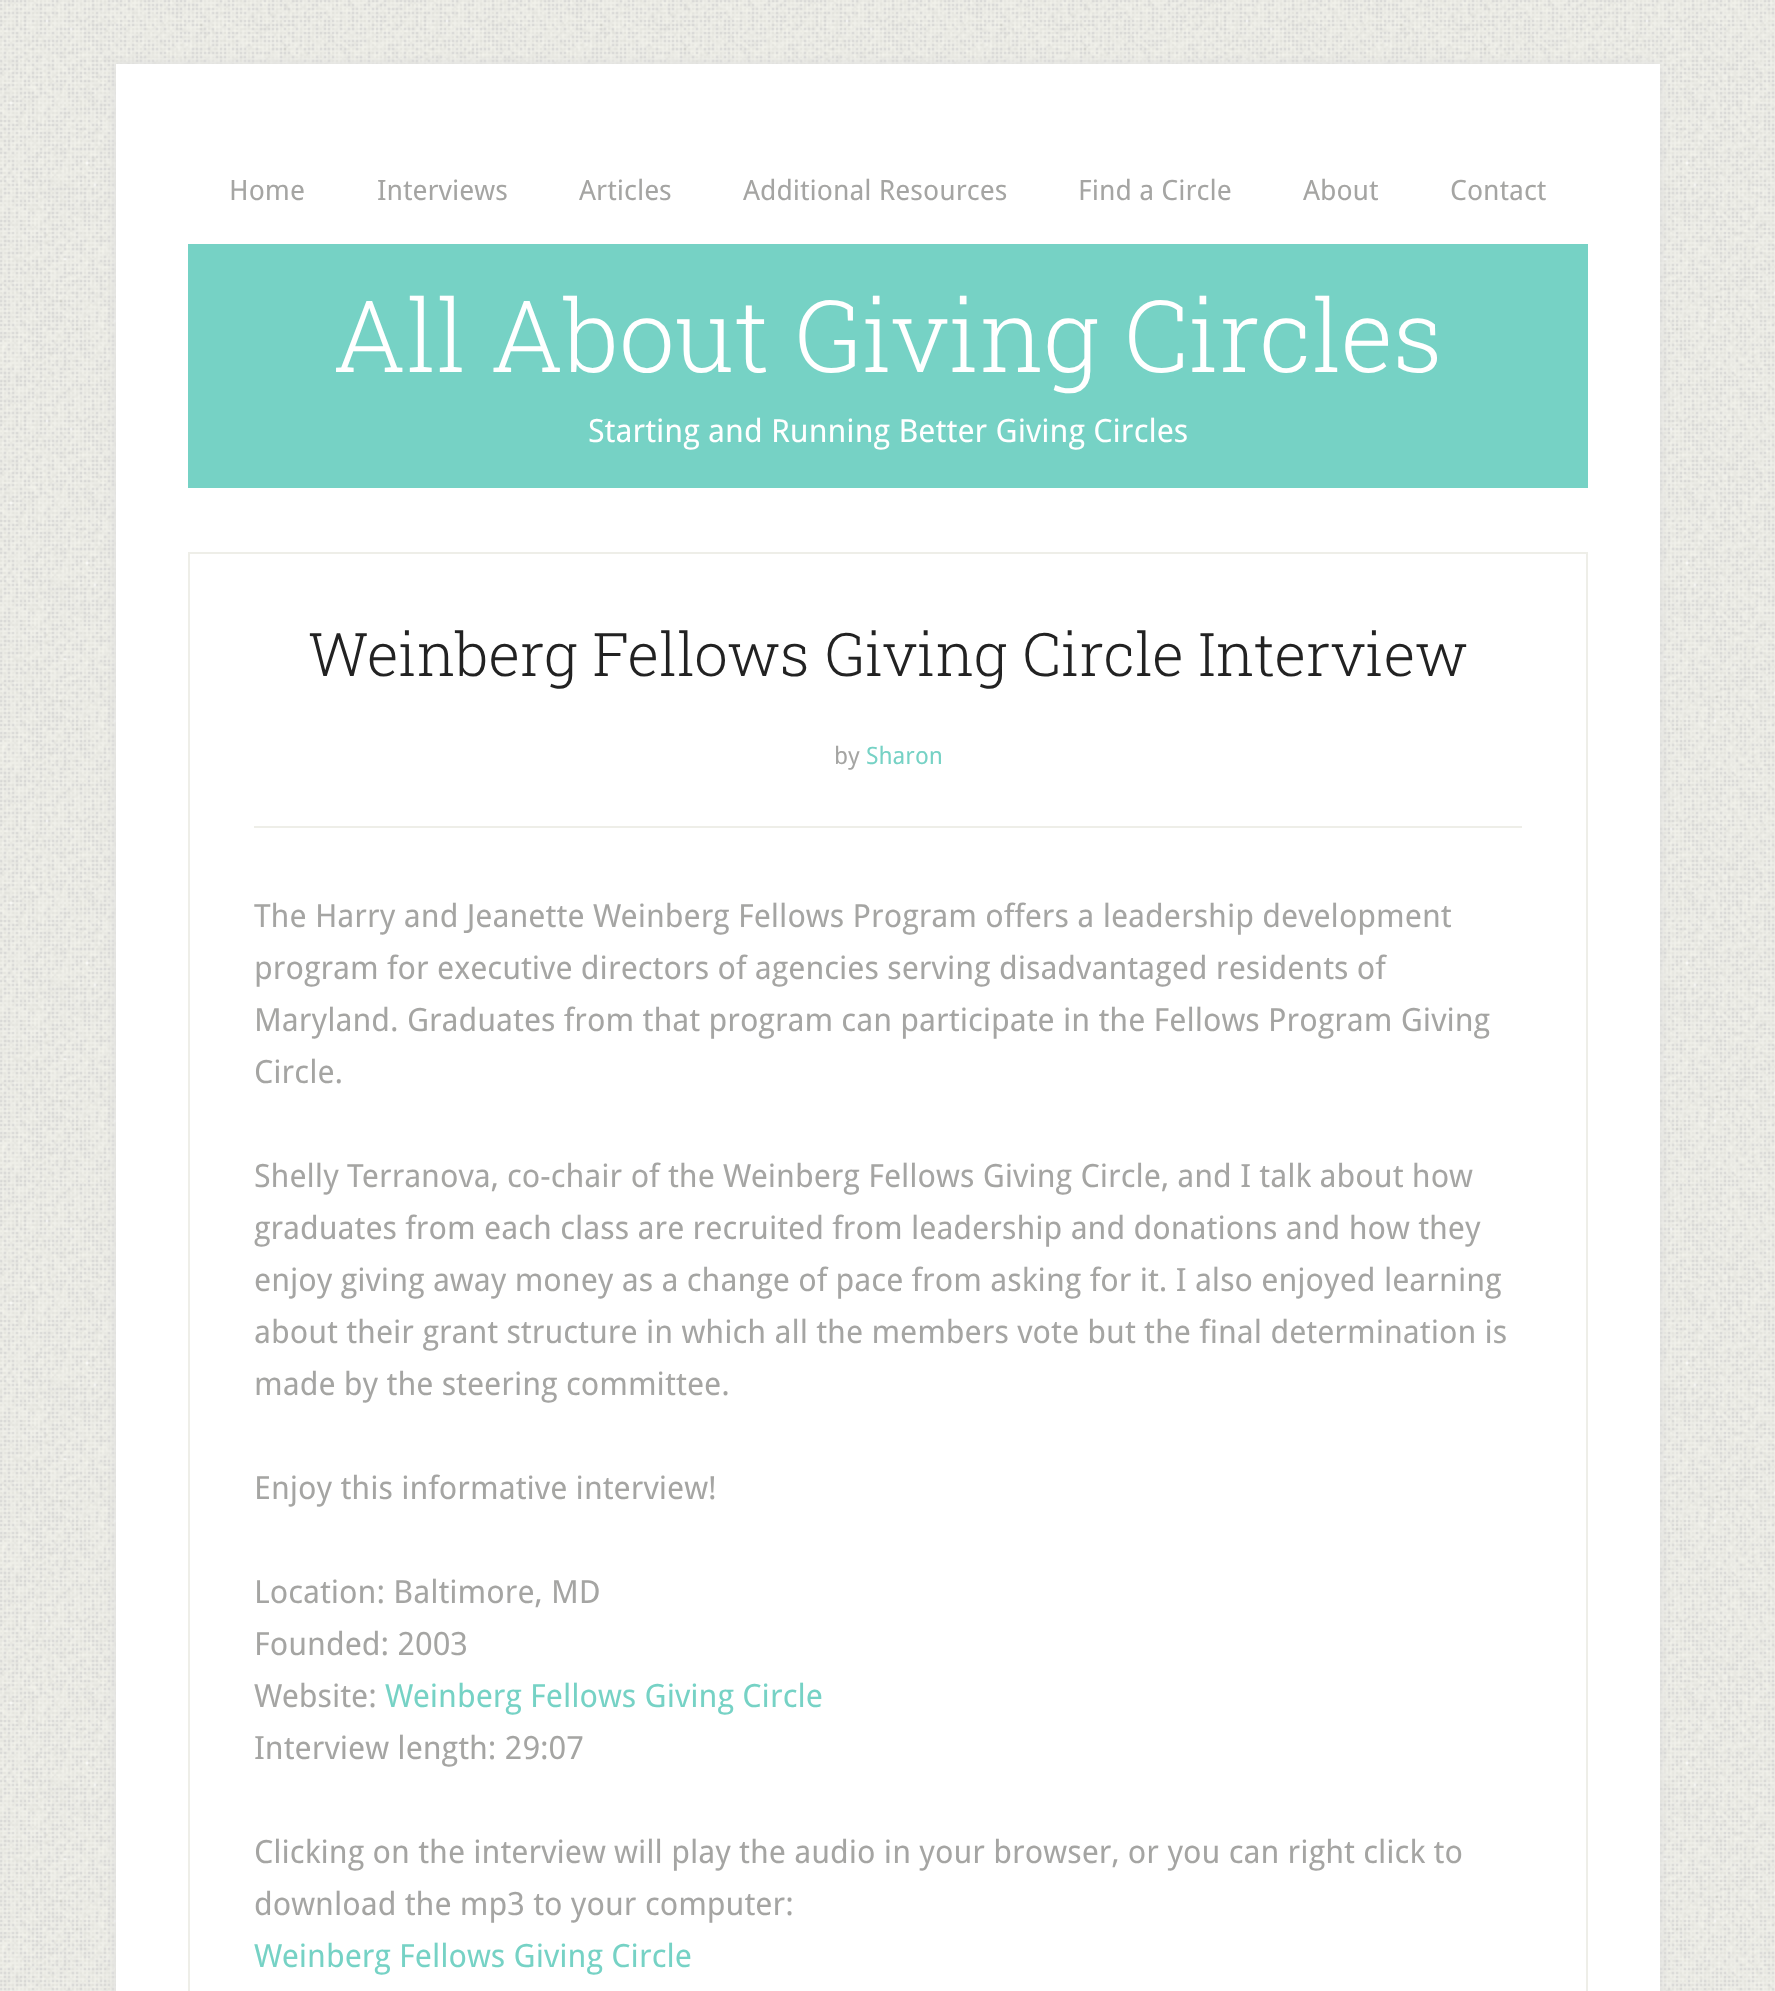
(async () => {
  const canvas = document.querySelector("canvas");
  canvas.width = 1775;
  canvas.height = 1991;
  const ctx = canvas.getContext("2d");
  ctx.miterLimit = 4;
  ctx.fontKerning = "normal";
  async function loadImage(src) {
    const img = new Image();
    img.src = src;
    await img.decode();
    return img;
  }

  ctx.fillStyle = "#ffffff";
  ctx.fillRect(0, 0, 1775, 1991);
  ctx.drawImage(await loadImage("img/1.png"), 0, 0, 1775, 1991);
  ctx.fillStyle = "#dddddd";
  ctx.filter = "blur(5px)";
  ctx.beginPath();
  ctx.rect(116, 64, 1544, 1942);
  ctx.fill();
  ctx.filter = "none";
  ctx.fillStyle = "#ffffff";
  ctx.fillRect(116, 64, 1544, 1927);
  ctx.fillStyle = "#76d2c5";
  ctx.fillRect(188, 244, 1400, 244);
  ctx.strokeStyle = "#eeeee8";
  ctx.lineWidth = 2;
  ctx.strokeRect(189, 553, 1398, 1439);
  ctx.fillStyle = "#eeeee8";
  ctx.fillRect(254, 826, 1268, 2);
  ctx.font = "28px Droid Sans";
  ctx.fillStyle = "#a5a5a3";
  for (const [text, x, y] of [
    ["Home", 229, 200],
    ["Interviews", 377, 200],
    ["Articles", 579, 200],
    ["Additional Resources", 743, 200],
    ["Find a Circle", 1078, 200],
    ["About", 1303, 200],
    ["Contact", 1450, 200],
  ]) {
    ctx.fillText(text, x, y);
  }
  ctx.font = "300 100px Roboto Slab";
  ctx.fillStyle = "#ffffff";
  ctx.fillText("All About Giving Circles", 333, 372);
  ctx.font = "32px Droid Sans";
  ctx.fillText("Starting and Running Better Giving Circles", 588, 442);
  ctx.font = "300 60px Roboto Slab";
  ctx.fillStyle = "#222222";
  ctx.fillText("Weinberg Fellows Giving Circle Interview", 308, 676);
  ctx.font = "24px Droid Sans";
  ctx.fillStyle = "#a5a5a3";
  ctx.fillText("by", 834, 764);
  ctx.fillStyle = "#76d2c5";
  ctx.fillText("Sharon", 866, 764);
  ctx.font = "32px Droid Sans";
  ctx.fillStyle = "#a5a5a3";
  for (const [text, x, y] of [
    ["The Harry and Jeanette Weinberg Fellows Program offers a leadership development", 254, 927],
    ["program for executive directors of agencies serving disadvantaged residents of", 254, 979],
    ["Maryland. Graduates from that program can participate in the Fellows Program Giving", 254, 1031],
    ["Circle.", 254, 1083],
    ["Shelly Terranova, co-chair of the Weinberg Fellows Giving Circle, and I talk about how", 254, 1187],
    ["graduates from each class are recruited from leadership and donations and how they", 254, 1239],
    ["enjoy giving away money as a change of pace from asking for it. I also enjoyed learning", 254, 1291],
    ["about their grant structure in which all the members vote but the final determination is", 254, 1343],
    ["made by the steering committee.", 254, 1395],
    ["Enjoy this informative interview!", 254, 1499],
    ["Location: Baltimore, MD", 254, 1603],
    ["Founded: 2003", 254, 1655],
    ["Website:", 254, 1707],
  ]) {
    ctx.fillText(text, x, y);
  }
  ctx.fillStyle = "#76d2c5";
  ctx.fillText("Weinberg Fellows Giving Circle", 385, 1707);
  ctx.fillStyle = "#a5a5a3";
  for (const [text, x, y] of [
    ["Interview length: 29:07", 254, 1759],
    ["Clicking on the interview will play the audio in your browser, or you can right click to", 254, 1863],
    ["download the mp3 to your computer:", 254, 1915],
  ]) {
    ctx.fillText(text, x, y);
  }
  ctx.fillStyle = "#76d2c5";
  ctx.fillText("Weinberg Fellows Giving Circle", 254, 1967);
})();
